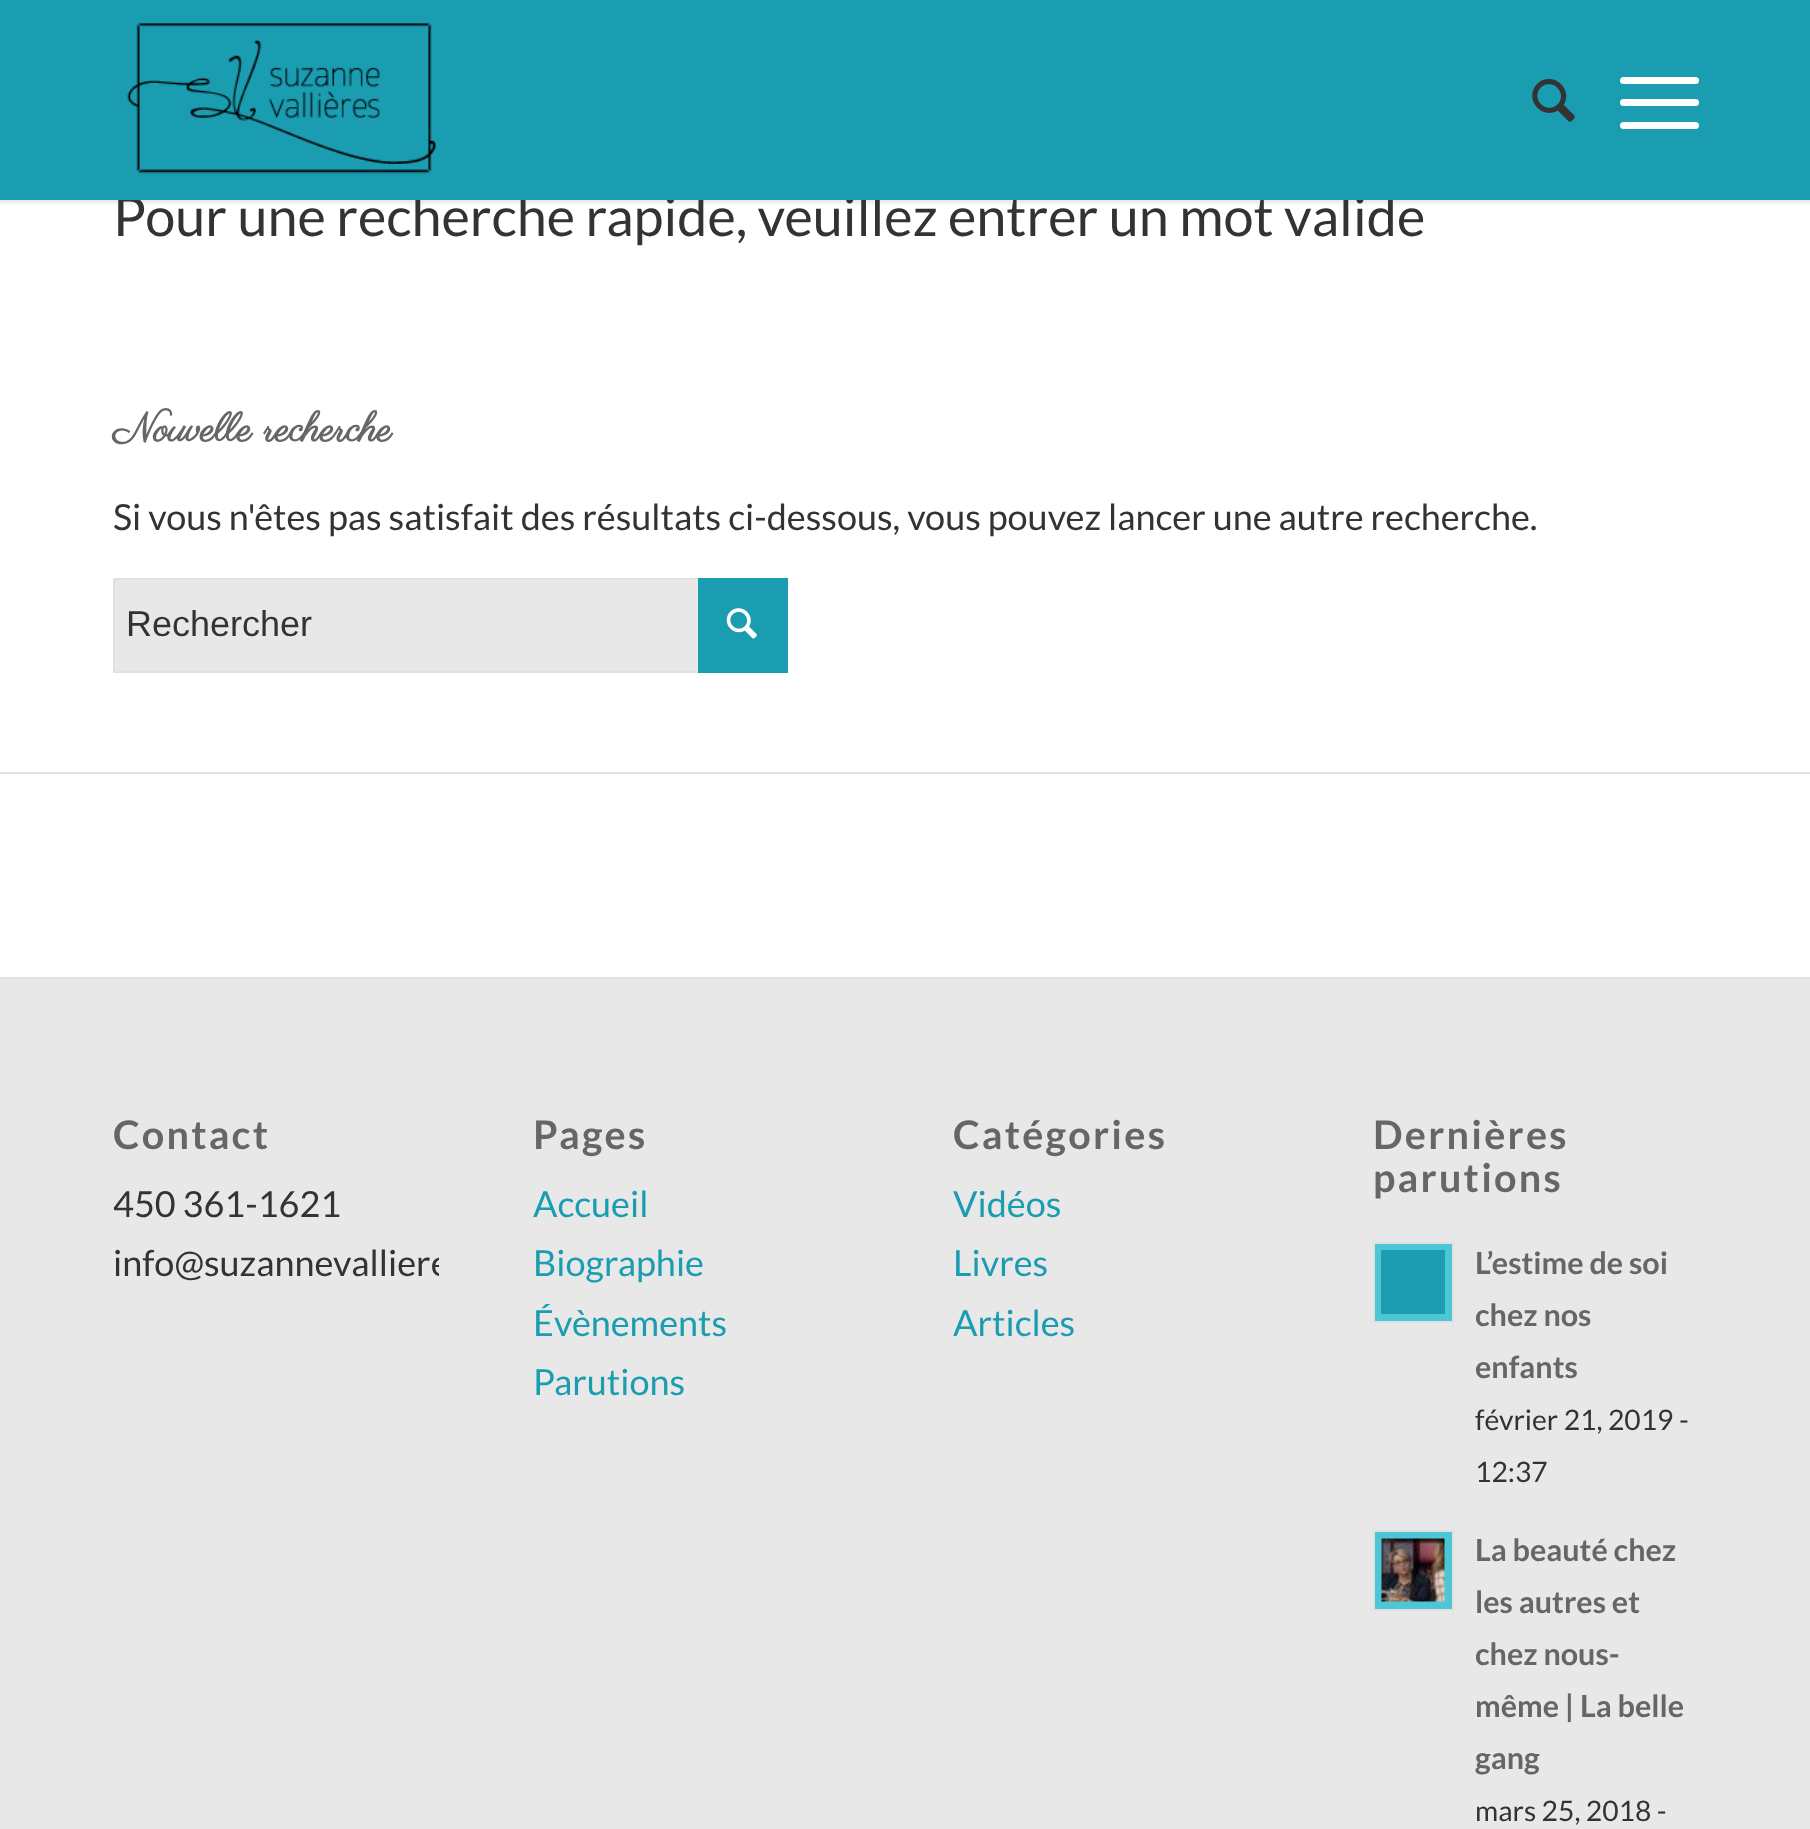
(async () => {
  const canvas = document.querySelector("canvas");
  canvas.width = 1810;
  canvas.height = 1829;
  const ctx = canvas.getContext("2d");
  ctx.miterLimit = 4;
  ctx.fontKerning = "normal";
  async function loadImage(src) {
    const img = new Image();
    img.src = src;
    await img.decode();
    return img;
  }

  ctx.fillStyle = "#ffffff";
  ctx.fillRect(0, 0, 1810, 1829);
  ctx.fillStyle = "rgba(0, 0, 0, 0.1)";
  ctx.filter = "blur(2px)";
  ctx.beginPath();
  ctx.rect(-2, -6, 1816, 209);
  ctx.fill();
  ctx.filter = "none";
  ctx.fillStyle = "#e8e8e8";
  ctx.fillRect(115, 580, 583, 91);
  ctx.strokeStyle = "#e1e1e1";
  ctx.lineWidth = 2;
  ctx.strokeRect(114, 579, 673, 93);
  ctx.fillStyle = "#1b9db1";
  ctx.fillRect(698, 578, 90, 95);
  ctx.drawImage(await loadImage("img/3.png"), 726, 608, 31, 31);
  for (const [x, y, w, h, color] of [
    [0, 772, 1810, 2, "#e1e1e1"],
    [0, 979, 1810, 850, "#e8e8e8"],
    [0, 977, 1810, 2, "#e1e1e1"],
  ]) {
    ctx.fillStyle = color;
    ctx.fillRect(x, y, w, h);
  }
  ctx.fillStyle = "#4dc6d6";
  ctx.beginPath();
  ctx.rect(1374, 1243, 79, 79);
  ctx.fill();
  ctx.stroke();
  ctx.fillStyle = "#1b9cb1";
  ctx.fillRect(1381, 1250, 64, 64);
  ctx.fillStyle = "#4dc6d6";
  ctx.beginPath();
  ctx.rect(1374, 1531, 79, 79);
  ctx.fill();
  ctx.stroke();
  ctx.drawImage(await loadImage("img/4.png"), 1381, 1538, 64, 64);
  ctx.font = "54px Lato";
  ctx.fillStyle = "#333333";
  ctx.fillText("Pour une recherche rapide, veuillez entrer un mot valide", 113, 236);
  ctx.fillStyle = "#1b9db1";
  ctx.fillRect(0, 0, 1810, 200);
  ctx.drawImage(await loadImage("img/2.png"), 1532, 79, 43, 43);
  ctx.fillStyle = "#ffffff";
  ctx.beginPath();
  ctx.roundRect(1620, 122, 79, 7, 3.5);
  ctx.fill();
  ctx.beginPath();
  ctx.roundRect(1620, 77, 79, 7, 3.5);
  ctx.fill();
  ctx.beginPath();
  ctx.roundRect(1620, 99, 79, 7, 3.5);
  ctx.fill();
  ctx.drawImage(await loadImage("img/1.png"), 127, 23, 310, 151);
  ctx.font = "bold 40.5px Parisienne";
  ctx.fillStyle = "#666666";
  ctx.fillText("Nouvelle recherche", 113, 441);
  ctx.font = "36px Lato";
  ctx.fillStyle = "#333333";
  ctx.fillText("Si vous n'êtes pas satisfait des résultats ci-dessous, vous pouvez lancer une autre recherche.", 113, 530);
  ctx.font = "36px Liberation Sans";
  ctx.fillText("Rechercher", 126, 636);
  ctx.letterSpacing = "2.25px";
  ctx.font = "bold 39.5px Lato";
  ctx.fillStyle = "#666666";
  ctx.fillText("Contact", 113, 1149);
  ctx.letterSpacing = "0px";
  ctx.font = "36px Lato";
  ctx.fillStyle = "#333333";
  ctx.fillText("450 361-1621", 113, 1217);
  ctx.save();
  ctx.beginPath();
  ctx.rect(113, 1080, 326, 214);
  ctx.clip();
  ctx.fillText("info@suzannevalliere", 113, 1276);
  ctx.restore();
  ctx.letterSpacing = "2.25px";
  ctx.font = "bold 39.5px Lato";
  ctx.fillStyle = "#666666";
  ctx.fillText("Pages", 533, 1149);
  ctx.letterSpacing = "0px";
  ctx.font = "36px Lato";
  ctx.fillStyle = "#1b9db1";
  for (const [text, x, y] of [
    ["Accueil", 533, 1217],
    ["Biographie", 533, 1276],
    ["Évènements", 533, 1336],
    ["Parutions", 533, 1395],
  ]) {
    ctx.fillText(text, x, y);
  }
  ctx.letterSpacing = "2.25px";
  ctx.font = "bold 39.5px Lato";
  ctx.fillStyle = "#666666";
  ctx.fillText("Catégories", 953, 1149);
  ctx.letterSpacing = "0px";
  ctx.font = "36px Lato";
  ctx.fillStyle = "#1b9db1";
  for (const [text, x, y] of [
    ["Vidéos", 953, 1217],
    ["Livres", 953, 1276],
    ["Articles", 953, 1336],
  ]) {
    ctx.fillText(text, x, y);
  }
  ctx.letterSpacing = "2.25px";
  ctx.font = "bold 39.5px Lato";
  ctx.fillStyle = "#666666";
  ctx.fillText("Dernières", 1373, 1149);
  ctx.fillText("parutions", 1373, 1192);
  ctx.letterSpacing = "0px";
  ctx.font = "bold 30.5px Lato";
  for (const [text, x, y] of [
    ["L’estime de soi", 1475, 1274],
    ["chez nos", 1475, 1326],
    ["enfants", 1475, 1378],
  ]) {
    ctx.fillText(text, x, y);
  }
  ctx.font = "28.25px Lato";
  ctx.fillStyle = "#333333";
  ctx.fillText("février 21, 2019 -", 1475, 1430);
  ctx.fillText("12:37", 1475, 1482);
  ctx.font = "bold 30.5px Lato";
  ctx.fillStyle = "#666666";
  for (const [text, x, y] of [
    ["La beauté chez", 1475, 1561],
    ["les autres et", 1475, 1613],
    ["chez nous-", 1475, 1665],
    ["même | La belle", 1475, 1717],
    ["gang", 1475, 1769],
  ]) {
    ctx.fillText(text, x, y);
  }
  ctx.font = "28.25px Lato";
  ctx.fillStyle = "#333333";
  ctx.fillText("mars 25, 2018 -", 1475, 1821);
})();
